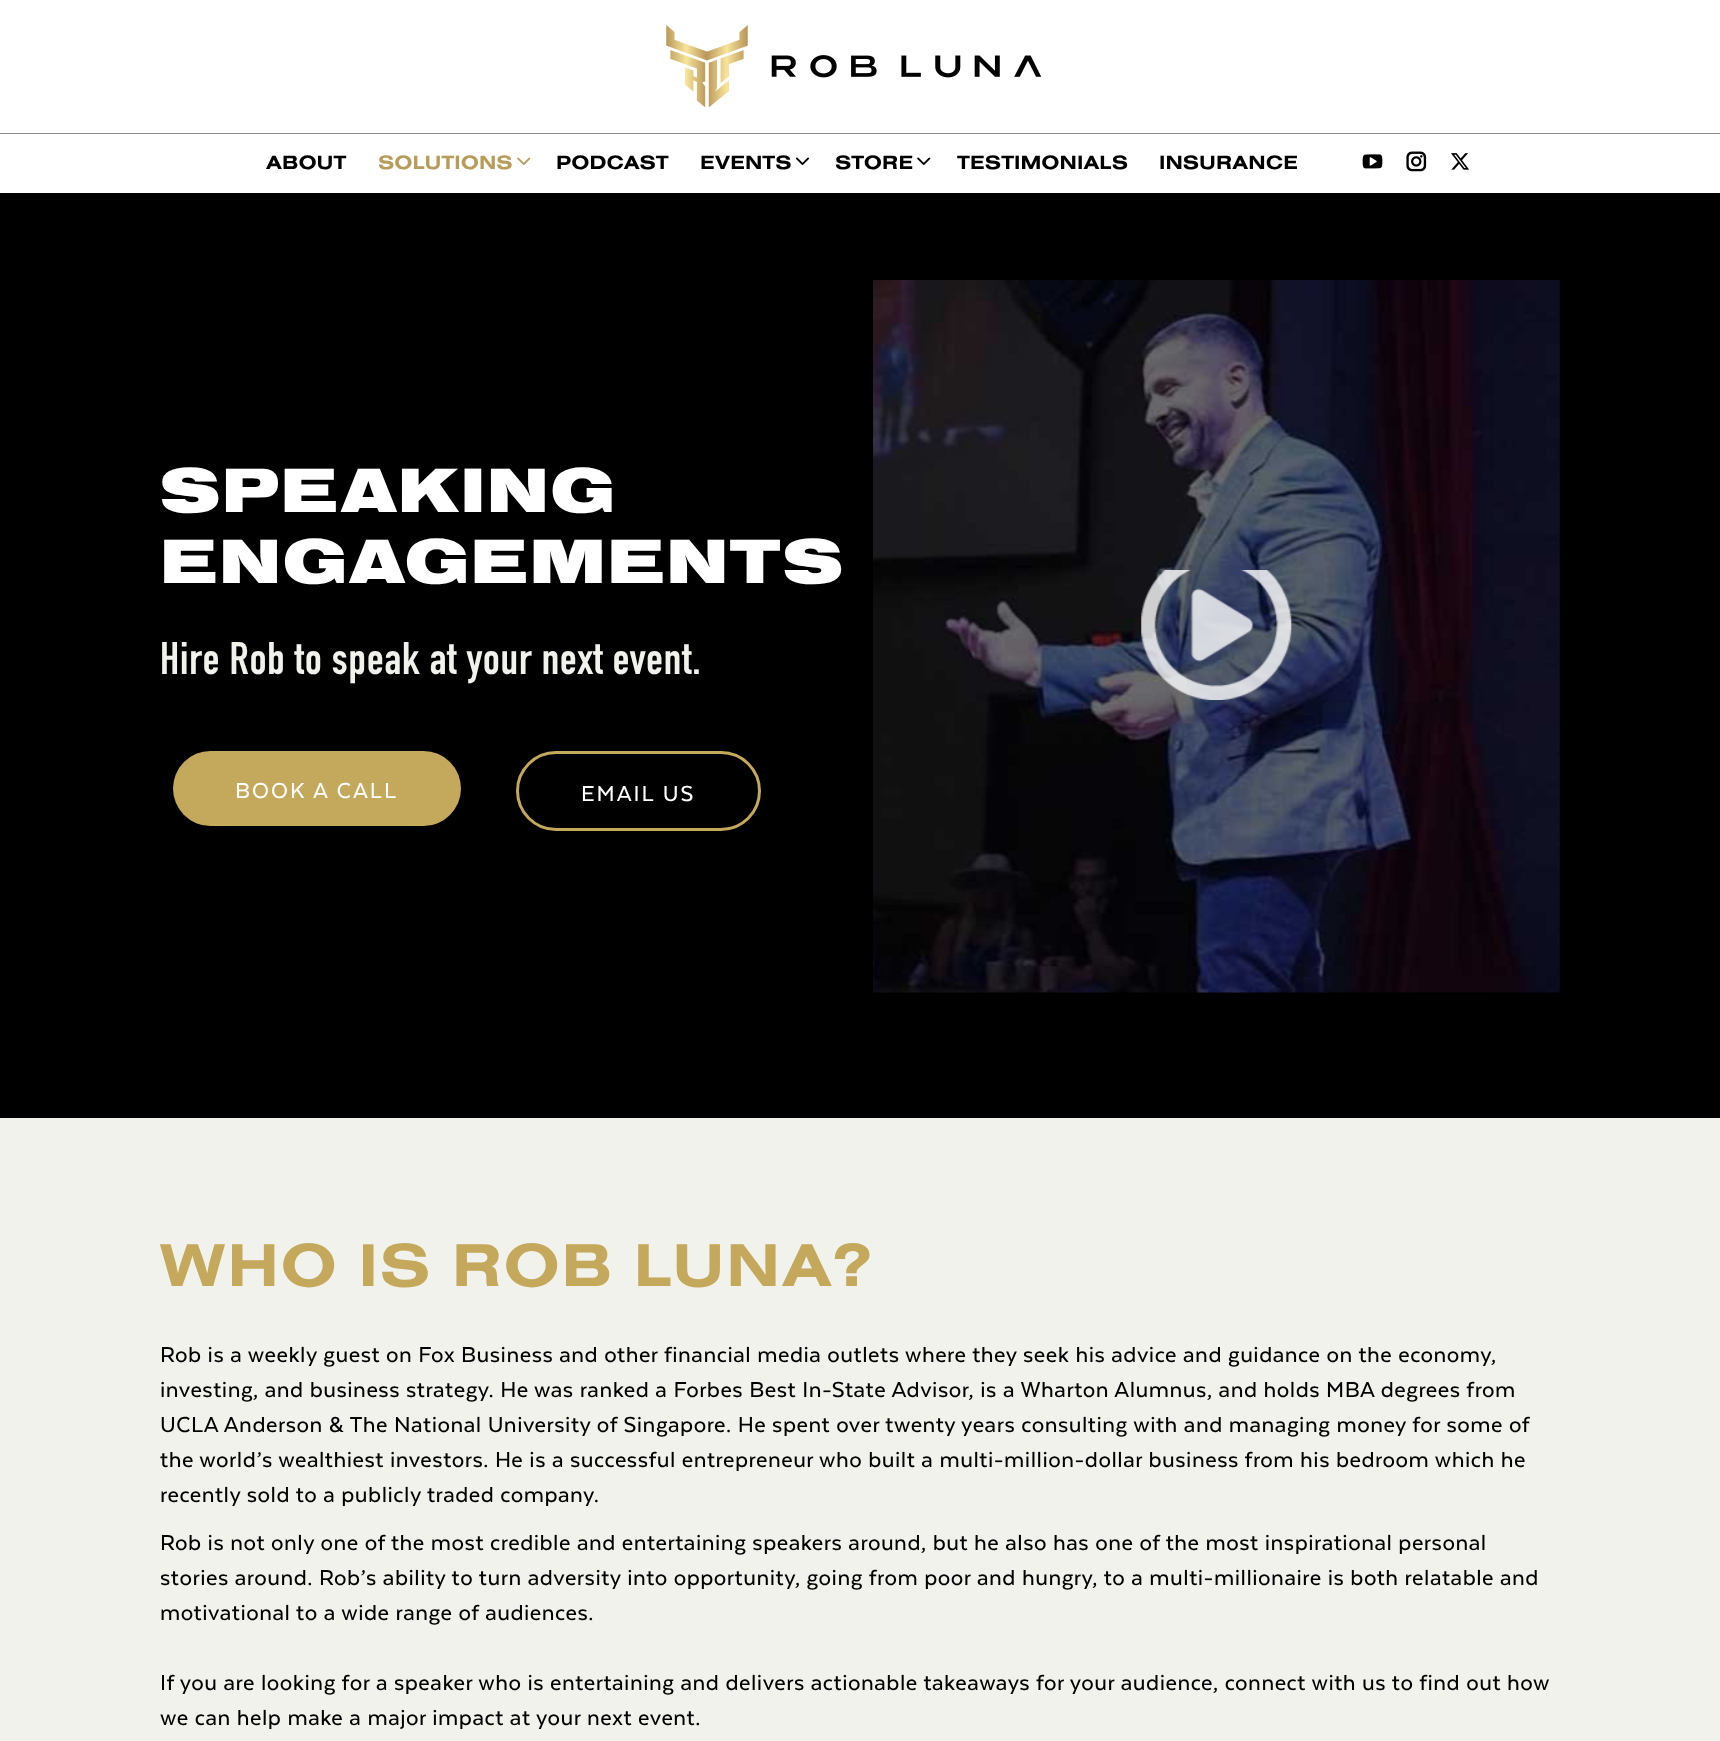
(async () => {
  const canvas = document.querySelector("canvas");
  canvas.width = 1720;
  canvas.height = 1741;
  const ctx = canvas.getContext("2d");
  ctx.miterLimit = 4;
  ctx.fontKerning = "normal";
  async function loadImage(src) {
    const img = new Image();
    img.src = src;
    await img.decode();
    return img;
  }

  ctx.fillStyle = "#ffffff";
  ctx.fillRect(0, 0, 1720, 1741);
  ctx.drawImage(await loadImage("img/1.png"), 666, 25, 375, 83);
  ctx.fillStyle = "#8b8b8b";
  ctx.fillRect(0, 133, 1720, 1);
  ctx.drawImage(await loadImage("img/2.png"), 517, 157, 14, 8);
  ctx.drawImage(await loadImage("img/3.png"), 796, 157, 13, 8);
  ctx.drawImage(await loadImage("img/4.png"), 917, 157, 14, 8);
  ctx.drawImage(await loadImage("img/5.png"), 1362, 154, 21, 15);
  ctx.drawImage(await loadImage("img/6.png"), 1406, 151, 21, 21);
  ctx.drawImage(await loadImage("img/7.png"), 1451, 153, 19, 17);
  ctx.fillStyle = "#000000";
  ctx.fillRect(0, 193, 1720, 925);
  ctx.fillStyle = "#c4a85b";
  ctx.beginPath();
  ctx.roundRect(173, 751, 288, 75, 37.5);
  ctx.fill();
  ctx.beginPath();
  ctx.roundRect(517.5, 752.5, 242, 77, 38.5);
  ctx.strokeStyle = "#c4a85b";
  ctx.lineWidth = 3;
  ctx.stroke();
  ctx.drawImage(await loadImage("img/8.png"), 873, 280, 687, 713);
  ctx.drawImage(await loadImage("img/9.png"), 1141, 570, 151, 130);
  ctx.fillStyle = "#f2f2ec";
  ctx.fillRect(0, 1118, 1720, 623);
  ctx.font = "bold 20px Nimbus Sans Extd";
  ctx.fillStyle = "#000000";
  ctx.fillText("ABOUT", 266, 169);
  ctx.fillStyle = "#b89c5b";
  ctx.fillText("SOLUTIONS", 378, 169);
  ctx.fillStyle = "#000000";
  for (const [text, x, y] of [
    ["PODCAST", 556, 169],
    ["EVENTS", 700, 169],
    ["STORE", 835, 169],
    ["TESTIMONIALS", 957, 169],
    ["INSURANCE", 1159, 169],
  ]) {
    ctx.fillText(text, x, y);
  }
  ctx.letterSpacing = "1.25px";
  ctx.font = "900 65px Nimbus Sans Extd";
  ctx.fillStyle = "#ffffff";
  ctx.fillText("SPEAKING", 160, 512);
  ctx.fillText("ENGAGEMENTS", 160, 583);
  ctx.letterSpacing = "0.9px";
  ctx.font = "bold 45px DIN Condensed";
  ctx.fillStyle = "#f2f2ec";
  ctx.fillText("Hire Rob to speak at your next event.", 160, 674);
  ctx.letterSpacing = "2px";
  ctx.font = "500 25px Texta";
  ctx.fillStyle = "#ffffff";
  ctx.fillText("BOOK A CALL", 235, 798);
  ctx.fillText("EMAIL US", 581, 801);
  ctx.letterSpacing = "1.25px";
  ctx.font = "bold 62.5px Nimbus Sans Extd";
  ctx.fillStyle = "#c4a85b";
  ctx.fillText("WHO IS ROB LUNA?", 160, 1286);
  ctx.letterSpacing = "0.5px";
  ctx.font = "500 25px Texta";
  ctx.fillStyle = "#000000";
  for (const [text, x, y] of [
    ["Rob is a weekly guest on Fox Business and other financial media outlets where they seek his advice and guidance on the economy,", 160, 1362],
    ["investing, and business strategy. He was ranked a Forbes Best In-State Advisor, is a Wharton Alumnus, and holds MBA degrees from", 160, 1397],
    ["UCLA Anderson & The National University of Singapore. He spent over twenty years consulting with and managing money for some of", 160, 1432],
    ["the world’s wealthiest investors. He is a successful entrepreneur who built a multi-million-dollar business from his bedroom which he", 160, 1467],
    ["recently sold to a publicly traded company.", 160, 1502],
    ["Rob is not only one of the most credible and entertaining speakers around, but he also has one of the most inspirational personal", 160, 1550],
    ["stories around. Rob’s ability to turn adversity into opportunity, going from poor and hungry, to a multi-millionaire is both relatable and", 160, 1585],
    ["motivational to a wide range of audiences.", 160, 1620],
    ["If you are looking for a speaker who is entertaining and delivers actionable takeaways for your audience, connect with us to find out how", 160, 1690],
    ["we can help make a major impact at your next event.", 160, 1725],
  ]) {
    ctx.fillText(text, x, y);
  }
})();
